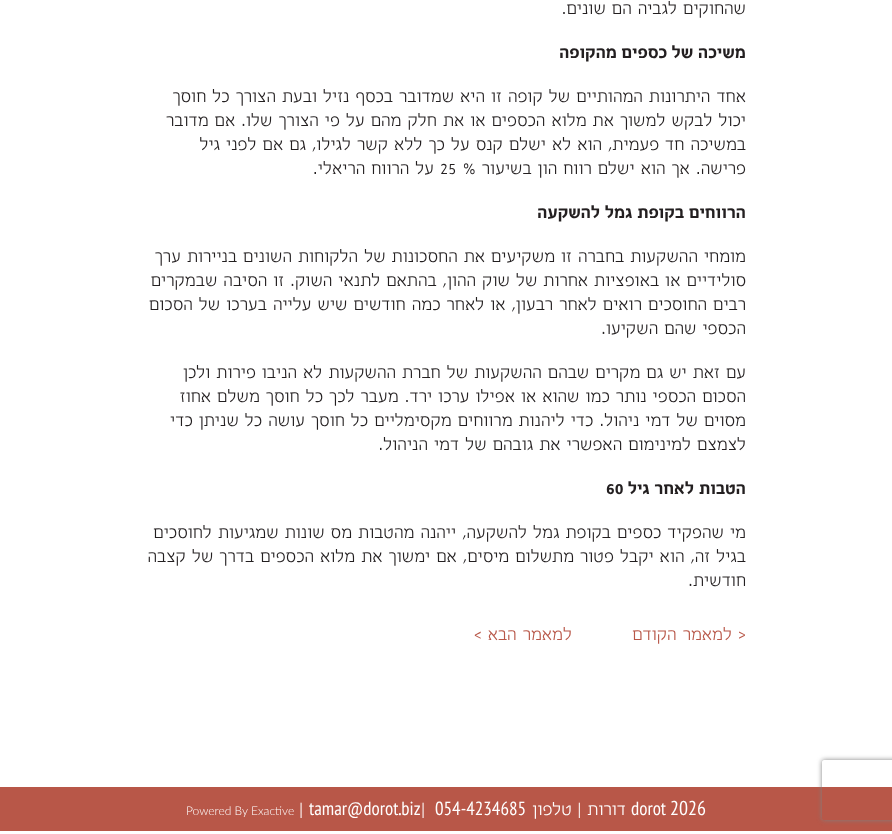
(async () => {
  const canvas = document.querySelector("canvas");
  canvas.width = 892;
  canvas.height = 834;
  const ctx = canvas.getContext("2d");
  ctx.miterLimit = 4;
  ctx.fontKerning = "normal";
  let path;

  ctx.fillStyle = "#ffffff";
  ctx.fillRect(0, 0, 892, 834);
  ctx.fillStyle = "#b85748";
  ctx.fillRect(0, 787, 892, 44);
  ctx.save();
  path = new Path2D("M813 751H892V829H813ZM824 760H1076C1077 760 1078 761 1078 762V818C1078 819 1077 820 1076 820H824C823 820 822 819 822 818V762C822 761 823 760 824 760Z");
  ctx.clip(path, "evenodd");
  ctx.fillStyle = "#808080";
  ctx.filter = "blur(2.5px)";
  ctx.beginPath();
  ctx.roundRect(822, 760, 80, 60, 2);
  ctx.fill();
  ctx.filter = "none";
  ctx.restore();
  ctx.direction = "rtl";
  ctx.font = "300 20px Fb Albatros";
  ctx.fillStyle = "#231f20";
  ctx.fillText("שהחוקים לגביה הם שונים.", 746, 14);
  ctx.font = "bold 20px Fb Albatros";
  ctx.fillText("משיכה של כספים מהקופה", 746, 58);
  ctx.font = "300 20px Fb Albatros";
  for (const [text, x, y] of [
    ["אחד היתרונות המהותיים של קופה זו היא שמדובר בכסף נזיל ובעת הצורך כל חוסך", 746, 102],
    ["יכול לבקש למשוך את מלוא הכספים או את חלק מהם על פי הצורך שלו. אם מדובר", 746, 126],
    ["במשיכה חד פעמית, הוא לא ישלם קנס על כך ללא קשר לגילו, גם אם לפני גיל", 746, 150],
    ["פרישה. אך הוא ישלם רווח הון בשיעור %", 746, 174],
  ]) {
    ctx.fillText(text, x, y);
  }
  ctx.direction = "ltr";
  ctx.fillText("25", 440, 174);
  ctx.direction = "rtl";
  ctx.fillText("על הרווח הריאלי.", 434, 174);
  ctx.font = "bold 20px Fb Albatros";
  ctx.fillText("הרווחים בקופת גמל להשקעה", 746, 218);
  ctx.font = "300 20px Fb Albatros";
  for (const [text, x, y] of [
    ["מומחי ההשקעות בחברה זו משקיעים את החסכונות של הלקוחות השונים בניירות ערך", 746, 262],
    ["סולידיים או באופציות אחרות של שוק ההון, בהתאם לתנאי השוק. זו הסיבה שבמקרים", 746, 286],
    ["רבים החוסכים רואים לאחר רבעון, או לאחר כמה חודשים שיש עלייה בערכו של הסכום", 746, 310],
    ["הכספי שהם השקיעו.", 746, 334],
    ["עם זאת יש גם מקרים שבהם ההשקעות של חברת ההשקעות לא הניבו פירות ולכן", 746, 378],
    ["הסכום הכספי נותר כמו שהוא או אפילו ערכו ירד. מעבר לכך כל חוסך משלם אחוז", 746, 402],
    ["מסוים של דמי ניהול. כדי ליהנות מרווחים מקסימליים כל חוסך עושה כל שניתן כדי", 746, 426],
    ["לצמצם למינימום האפשרי את גובהם של דמי הניהול.", 746, 450],
  ]) {
    ctx.fillText(text, x, y);
  }
  ctx.font = "bold 20px Fb Albatros";
  ctx.fillText("הטבות לאחר גיל", 746, 494);
  ctx.direction = "ltr";
  ctx.fillText("60", 606, 494);
  ctx.direction = "rtl";
  ctx.font = "300 20px Fb Albatros";
  for (const [text, x, y] of [
    ["מי שהפקיד כספים בקופת גמל להשקעה, ייהנה מהטבות מס שונות שמגיעות לחוסכים", 746, 538],
    ["בגיל זה, הוא יקבל פטור מתשלום מיסים, אם ימשוך את מלוא הכספים בדרך של קצבה", 746, 562],
    ["חודשית.", 746, 586],
  ]) {
    ctx.fillText(text, x, y);
  }
  ctx.fillStyle = "#b85748";
  ctx.fillText("< למאמר הקודם", 746, 640);
  ctx.fillText("למאמר הבא >", 572, 640);
  ctx.direction = "ltr";
  ctx.font = "20px PT Sans Narrow";
  ctx.fillStyle = "#ffffff";
  ctx.fillText("2026", 670, 815);
  ctx.font = "19px PT Sans Narrow";
  ctx.fillText("dorot", 631, 815);
  ctx.direction = "rtl";
  ctx.font = "300 20px Fb Albatros";
  ctx.fillText("דורות |", 626, 815);
  ctx.fillText("טלפון", 572, 815);
  ctx.direction = "ltr";
  ctx.font = "19px PT Sans Narrow";
  ctx.fillText("054-4234685", 435, 815);
  ctx.font = "300 20px Fb Albatros";
  ctx.fillText("|", 421, 815);
  ctx.font = "19px PT Sans Narrow";
  ctx.fillText("tamar@dorot.biz", 309, 815);
  ctx.font = "300 20px Fb Albatros";
  ctx.fillText("|", 299, 815);
  ctx.font = "300 12px Lato";
  ctx.fillText("Powered By Exactive", 186, 815);
})();
